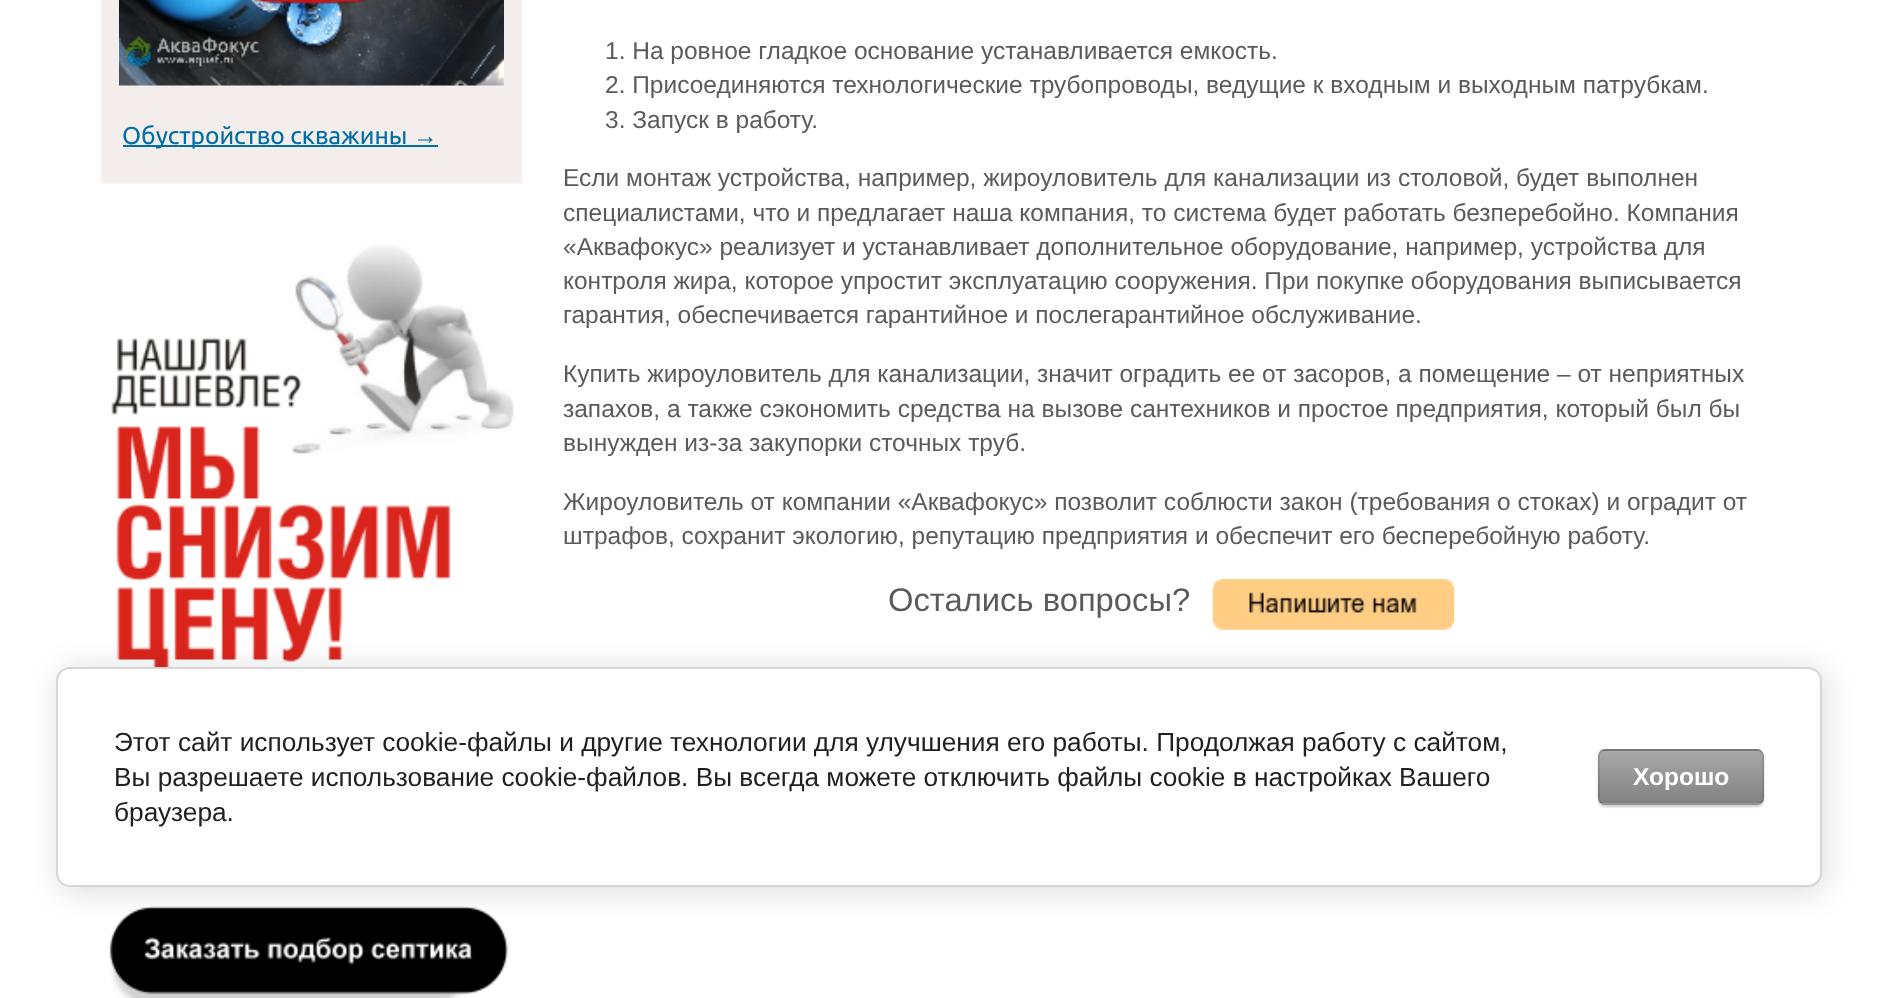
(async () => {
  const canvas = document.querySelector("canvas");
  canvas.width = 1877;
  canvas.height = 998;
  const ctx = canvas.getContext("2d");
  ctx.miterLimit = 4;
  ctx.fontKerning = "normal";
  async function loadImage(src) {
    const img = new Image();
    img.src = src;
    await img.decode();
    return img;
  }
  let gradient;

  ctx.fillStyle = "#ffffff";
  ctx.fillRect(0, 0, 1877, 998);
  ctx.fillStyle = "#f3edeb";
  ctx.beginPath();
  ctx.rect(101, -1, 421, 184);
  ctx.fill();
  ctx.strokeStyle = "#f9f6f5";
  ctx.lineWidth = 2;
  ctx.stroke();
  ctx.drawImage(await loadImage("img/1.png"), 119, 0, 385, 86);
  ctx.fillStyle = "#006ea5";
  ctx.fillRect(123, 145, 315, 2);
  ctx.drawImage(await loadImage("img/2.png"), 111, 244, 403, 423);
  ctx.drawImage(await loadImage("img/3.png"), 109, 887, 399, 111);
  ctx.drawImage(await loadImage("img/4.png"), 1212, 579, 243, 51);
  ctx.fillStyle = "rgba(0, 0, 0, 0.14)";
  ctx.filter = "blur(16px)";
  ctx.beginPath();
  ctx.roundRect(60, 670, 1765, 221, 14);
  ctx.fill();
  ctx.filter = "none";
  ctx.fillStyle = "#ffffff";
  ctx.beginPath();
  ctx.roundRect(57, 668, 1764, 218, 13);
  ctx.fill();
  ctx.strokeStyle = "#d6d6d6";
  ctx.stroke();
  ctx.fillStyle = "rgba(0, 0, 0, 0.2)";
  ctx.filter = "blur(1px)";
  ctx.beginPath();
  ctx.roundRect(1598, 751, 166, 56, 7);
  ctx.fill();
  ctx.filter = "none";
  ctx.save();
  ctx.beginPath();
  ctx.roundRect(1598, 749, 166, 56, 7);
  ctx.clip();
  gradient = ctx.createLinearGradient(1681, 698, 1681, 751);
  gradient.addColorStop(0, "#a8a8a8");
  gradient.addColorStop(1, "#828282");
  ctx.fillStyle = gradient;
  ctx.fillRect(1598, 749, 166, 2);
  gradient = ctx.createLinearGradient(1681, 751, 1681, 803);
  gradient.addColorStop(0, "#a8a8a8");
  gradient.addColorStop(1, "#828282");
  ctx.fillStyle = gradient;
  ctx.fillRect(1598, 751, 166, 52);
  gradient = ctx.createLinearGradient(1681, 803, 1681, 856);
  gradient.addColorStop(0, "#a8a8a8");
  gradient.addColorStop(1, "#828282");
  ctx.fillStyle = gradient;
  ctx.fillRect(1598, 803, 166, 2);
  ctx.restore();
  ctx.beginPath();
  ctx.roundRect(1599, 750, 164, 54, 6);
  ctx.strokeStyle = "rgba(0, 0, 0, 0.1)";
  ctx.stroke();
  ctx.font = "24.5px Ubuntu";
  ctx.fillStyle = "#006ea5";
  ctx.fillText("Обустройство скважины", 122, 144);
  ctx.font = "24.5px Liberation Sans";
  ctx.fillText("→", 413, 144);
  ctx.fillStyle = "#5b5b5b";
  for (const [text, x, y] of [
    ["1. На ровное гладкое основание устанавливается емкость.", 605, 59],
    ["2. Присоединяются технологические трубопроводы, ведущие к входным и выходным патрубкам.", 605, 93],
    ["3. Запуск в работу.", 605, 128],
    ["Если монтаж устройства, например, жироуловитель для канализации из столовой, будет выполнен", 563, 186],
    ["специалистами, что и предлагает наша компания, то система будет работать безперебойно. Компания", 563, 221],
    ["«Аквафокус» реализует и устанавливает дополнительное оборудование, например, устройства для", 563, 255],
    ["контроля жира, которое упростит эксплуатацию сооружения. При покупке оборудования выписывается", 563, 289],
    ["гарантия, обеспечивается гарантийное и послегарантийное обслуживание.", 563, 323],
    ["Купить жироуловитель для канализации, значит оградить ее от засоров, а помещение – от неприятных", 563, 382],
    ["запахов, а также сэкономить средства на вызове сантехников и простое предприятия, который был бы", 563, 417],
    ["вынужден из-за закупорки сточных труб.", 563, 451],
    ["Жироуловитель от компании «Аквафокус» позволит соблюсти закон (требования о стоках) и оградит от", 563, 510],
    ["штрафов, сохранит экологию, репутацию предприятия и обеспечит его бесперебойную работу.", 563, 544],
  ]) {
    ctx.fillText(text, x, y);
  }
  ctx.font = "32.75px Liberation Sans";
  ctx.fillText("Остались вопросы?", 888, 611);
  ctx.font = "26.25px Liberation Sans";
  ctx.fillStyle = "#212121";
  for (const [text, x, y] of [
    ["Этот сайт использует cookie-файлы и другие технологии для улучшения его работы. Продолжая работу с сайтом,", 114, 751],
    ["Вы разрешаете использование cookie-файлов. Вы всегда можете отключить файлы cookie в настройках Вашего", 114, 786],
    ["браузера.", 114, 821],
  ]) {
    ctx.fillText(text, x, y);
  }
  ctx.font = "bold 24.5px Liberation Sans";
  ctx.fillStyle = "#ffffff";
  ctx.fillText("Хорошо", 1633, 785);
})();
